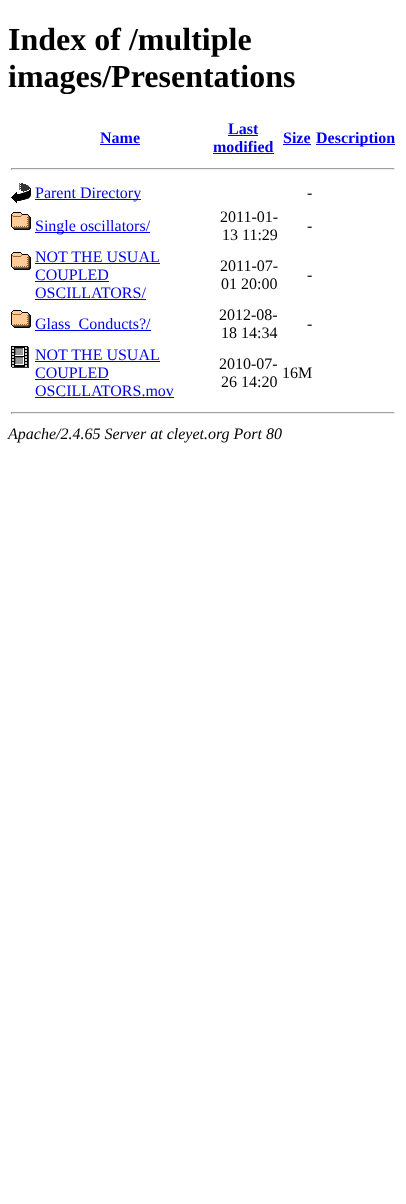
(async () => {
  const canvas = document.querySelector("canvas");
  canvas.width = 406;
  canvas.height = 1204;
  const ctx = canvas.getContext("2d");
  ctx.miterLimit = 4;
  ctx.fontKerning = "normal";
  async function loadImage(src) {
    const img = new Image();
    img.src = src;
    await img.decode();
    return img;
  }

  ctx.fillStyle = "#ffffff";
  ctx.fillRect(0, 0, 406, 1204);
  for (const [x, y, w, h, color] of [
    [100, 144, 40, 1, "#0000ee"],
    [228, 135, 30, 1, "#0000ee"],
    [213, 153, 61, 1, "#0000ee"],
    [283, 144, 28, 1, "#0000ee"],
    [316, 144, 79, 1, "#0000ee"],
    [11, 168, 384, 1, "#9f9f9f"],
    [394, 168, 1, 2, "#eeeeee"],
    [11, 169, 384, 1, "#eeeeee"],
    [11, 168, 1, 2, "#9f9f9f"],
  ]) {
    ctx.fillStyle = color;
    ctx.fillRect(x, y, w, h);
  }
  ctx.drawImage(await loadImage("img/1.png"), 11, 183, 20, 20);
  ctx.fillStyle = "#0000ee";
  ctx.fillRect(35, 199, 106, 1);
  ctx.drawImage(await loadImage("img/2.png"), 11, 212, 20, 18);
  ctx.fillRect(35, 232, 115, 1);
  ctx.drawImage(await loadImage("img/2.png"), 11, 252, 20, 18);
  for (const [x, y, w, h, color] of [
    [35, 263, 125, 1, "#0000ee"],
    [35, 281, 74, 1, "#0000ee"],
    [35, 299, 111, 1, "#0000ee"],
  ]) {
    ctx.fillStyle = color;
    ctx.fillRect(x, y, w, h);
  }
  ctx.drawImage(await loadImage("img/2.png"), 11, 310, 20, 18);
  ctx.fillRect(35, 330, 116, 1);
  ctx.drawImage(await loadImage("img/3.png"), 11, 346, 18, 22);
  for (const [x, y, w, h, color] of [
    [35, 361, 125, 1, "#0000ee"],
    [35, 379, 74, 1, "#0000ee"],
    [35, 397, 139, 1, "#0000ee"],
    [11, 412, 384, 1, "#9f9f9f"],
    [394, 412, 1, 2, "#eeeeee"],
    [11, 413, 384, 1, "#eeeeee"],
    [11, 412, 1, 2, "#9f9f9f"],
  ]) {
    ctx.fillStyle = color;
    ctx.fillRect(x, y, w, h);
  }
  ctx.font = "bold 32px Liberation Serif";
  ctx.fillStyle = "#000000";
  ctx.fillText("Index of /multiple", 8, 50);
  ctx.fillText("images/Presentations", 8, 87);
  ctx.font = "bold 16px Liberation Serif";
  ctx.fillStyle = "#0000ee";
  for (const [text, x, y] of [
    ["Name", 100, 143],
    ["Last", 228, 134],
    ["modified", 213, 152],
    ["Size", 283, 143],
    ["Description", 316, 143],
  ]) {
    ctx.fillText(text, x, y);
  }
  ctx.font = "16px Liberation Serif";
  ctx.fillText("Parent Directory", 35, 198);
  ctx.fillStyle = "#000000";
  ctx.fillText("-", 307, 198);
  ctx.fillStyle = "#0000ee";
  ctx.fillText("Single oscillators/", 35, 231);
  ctx.fillStyle = "#000000";
  for (const [text, x, y] of [
    ["2011-01-", 220, 222],
    ["13 11:29", 222, 240],
    ["-", 307, 231],
  ]) {
    ctx.fillText(text, x, y);
  }
  ctx.fillStyle = "#0000ee";
  for (const [text, x, y] of [
    ["NOT THE USUAL", 35, 262],
    ["COUPLED", 35, 280],
    ["OSCILLATORS/", 35, 298],
  ]) {
    ctx.fillText(text, x, y);
  }
  ctx.fillStyle = "#000000";
  for (const [text, x, y] of [
    ["2011-07-", 220, 271],
    ["01 20:00", 221, 289],
    ["-", 307, 280],
  ]) {
    ctx.fillText(text, x, y);
  }
  ctx.fillStyle = "#0000ee";
  ctx.fillText("Glass_Conducts?/", 35, 329);
  ctx.fillStyle = "#000000";
  for (const [text, x, y] of [
    ["2012-08-", 219, 320],
    ["18 14:34", 221, 338],
    ["-", 307, 329],
  ]) {
    ctx.fillText(text, x, y);
  }
  ctx.fillStyle = "#0000ee";
  for (const [text, x, y] of [
    ["NOT THE USUAL", 35, 360],
    ["COUPLED", 35, 378],
    ["OSCILLATORS.mov", 35, 396],
  ]) {
    ctx.fillText(text, x, y);
  }
  ctx.fillStyle = "#000000";
  for (const [text, x, y] of [
    ["2010-07-", 219, 369],
    ["26 14:20", 221, 387],
    ["16M", 282, 378],
  ]) {
    ctx.fillText(text, x, y);
  }
  ctx.font = "italic 16px Liberation Serif";
  ctx.fillText("Apache/2.4.65 Server at cleyet.org Port 80", 8, 439);
})();
